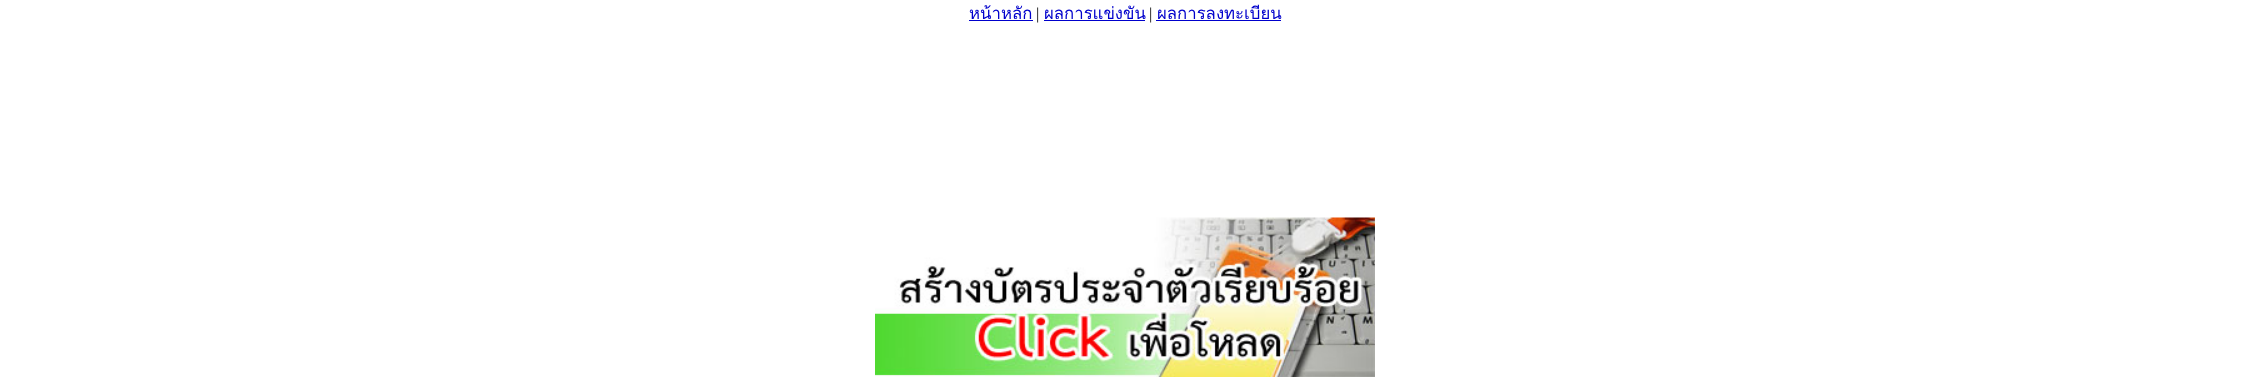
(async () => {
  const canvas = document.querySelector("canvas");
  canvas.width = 2249;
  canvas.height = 377;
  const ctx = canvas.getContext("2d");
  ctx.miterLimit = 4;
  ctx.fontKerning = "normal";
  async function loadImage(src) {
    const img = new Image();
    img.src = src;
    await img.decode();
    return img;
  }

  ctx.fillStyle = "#ffffff";
  ctx.fillRect(0, 0, 2249, 377);
  for (const [x, y, w, h, color] of [
    [969, 20, 64, 1, "#0000cc"],
    [1044, 20, 101, 1, "#0000cc"],
    [1156, 20, 125, 1, "#0000cc"],
  ]) {
    ctx.fillStyle = color;
    ctx.fillRect(x, y, w, h);
  }
  ctx.drawImage(await loadImage("img/1.png"), 875, 217, 500, 160);
  ctx.font = "16.75px Loma";
  ctx.fillText("หน้าหลัก", 969, 19);
  ctx.font = "16.75px Liberation Serif";
  ctx.fillStyle = "#000000";
  ctx.fillText("|", 1036, 19);
  ctx.font = "16.75px Loma";
  ctx.fillStyle = "#0000cc";
  ctx.fillText("ผลการแข่งขัน", 1044, 19);
  ctx.font = "16.75px Liberation Serif";
  ctx.fillStyle = "#000000";
  ctx.fillText("|", 1149, 19);
  ctx.font = "16.75px Loma";
  ctx.fillStyle = "#0000cc";
  ctx.fillText("ผลการลงทะเบียน", 1157, 19);
})();
